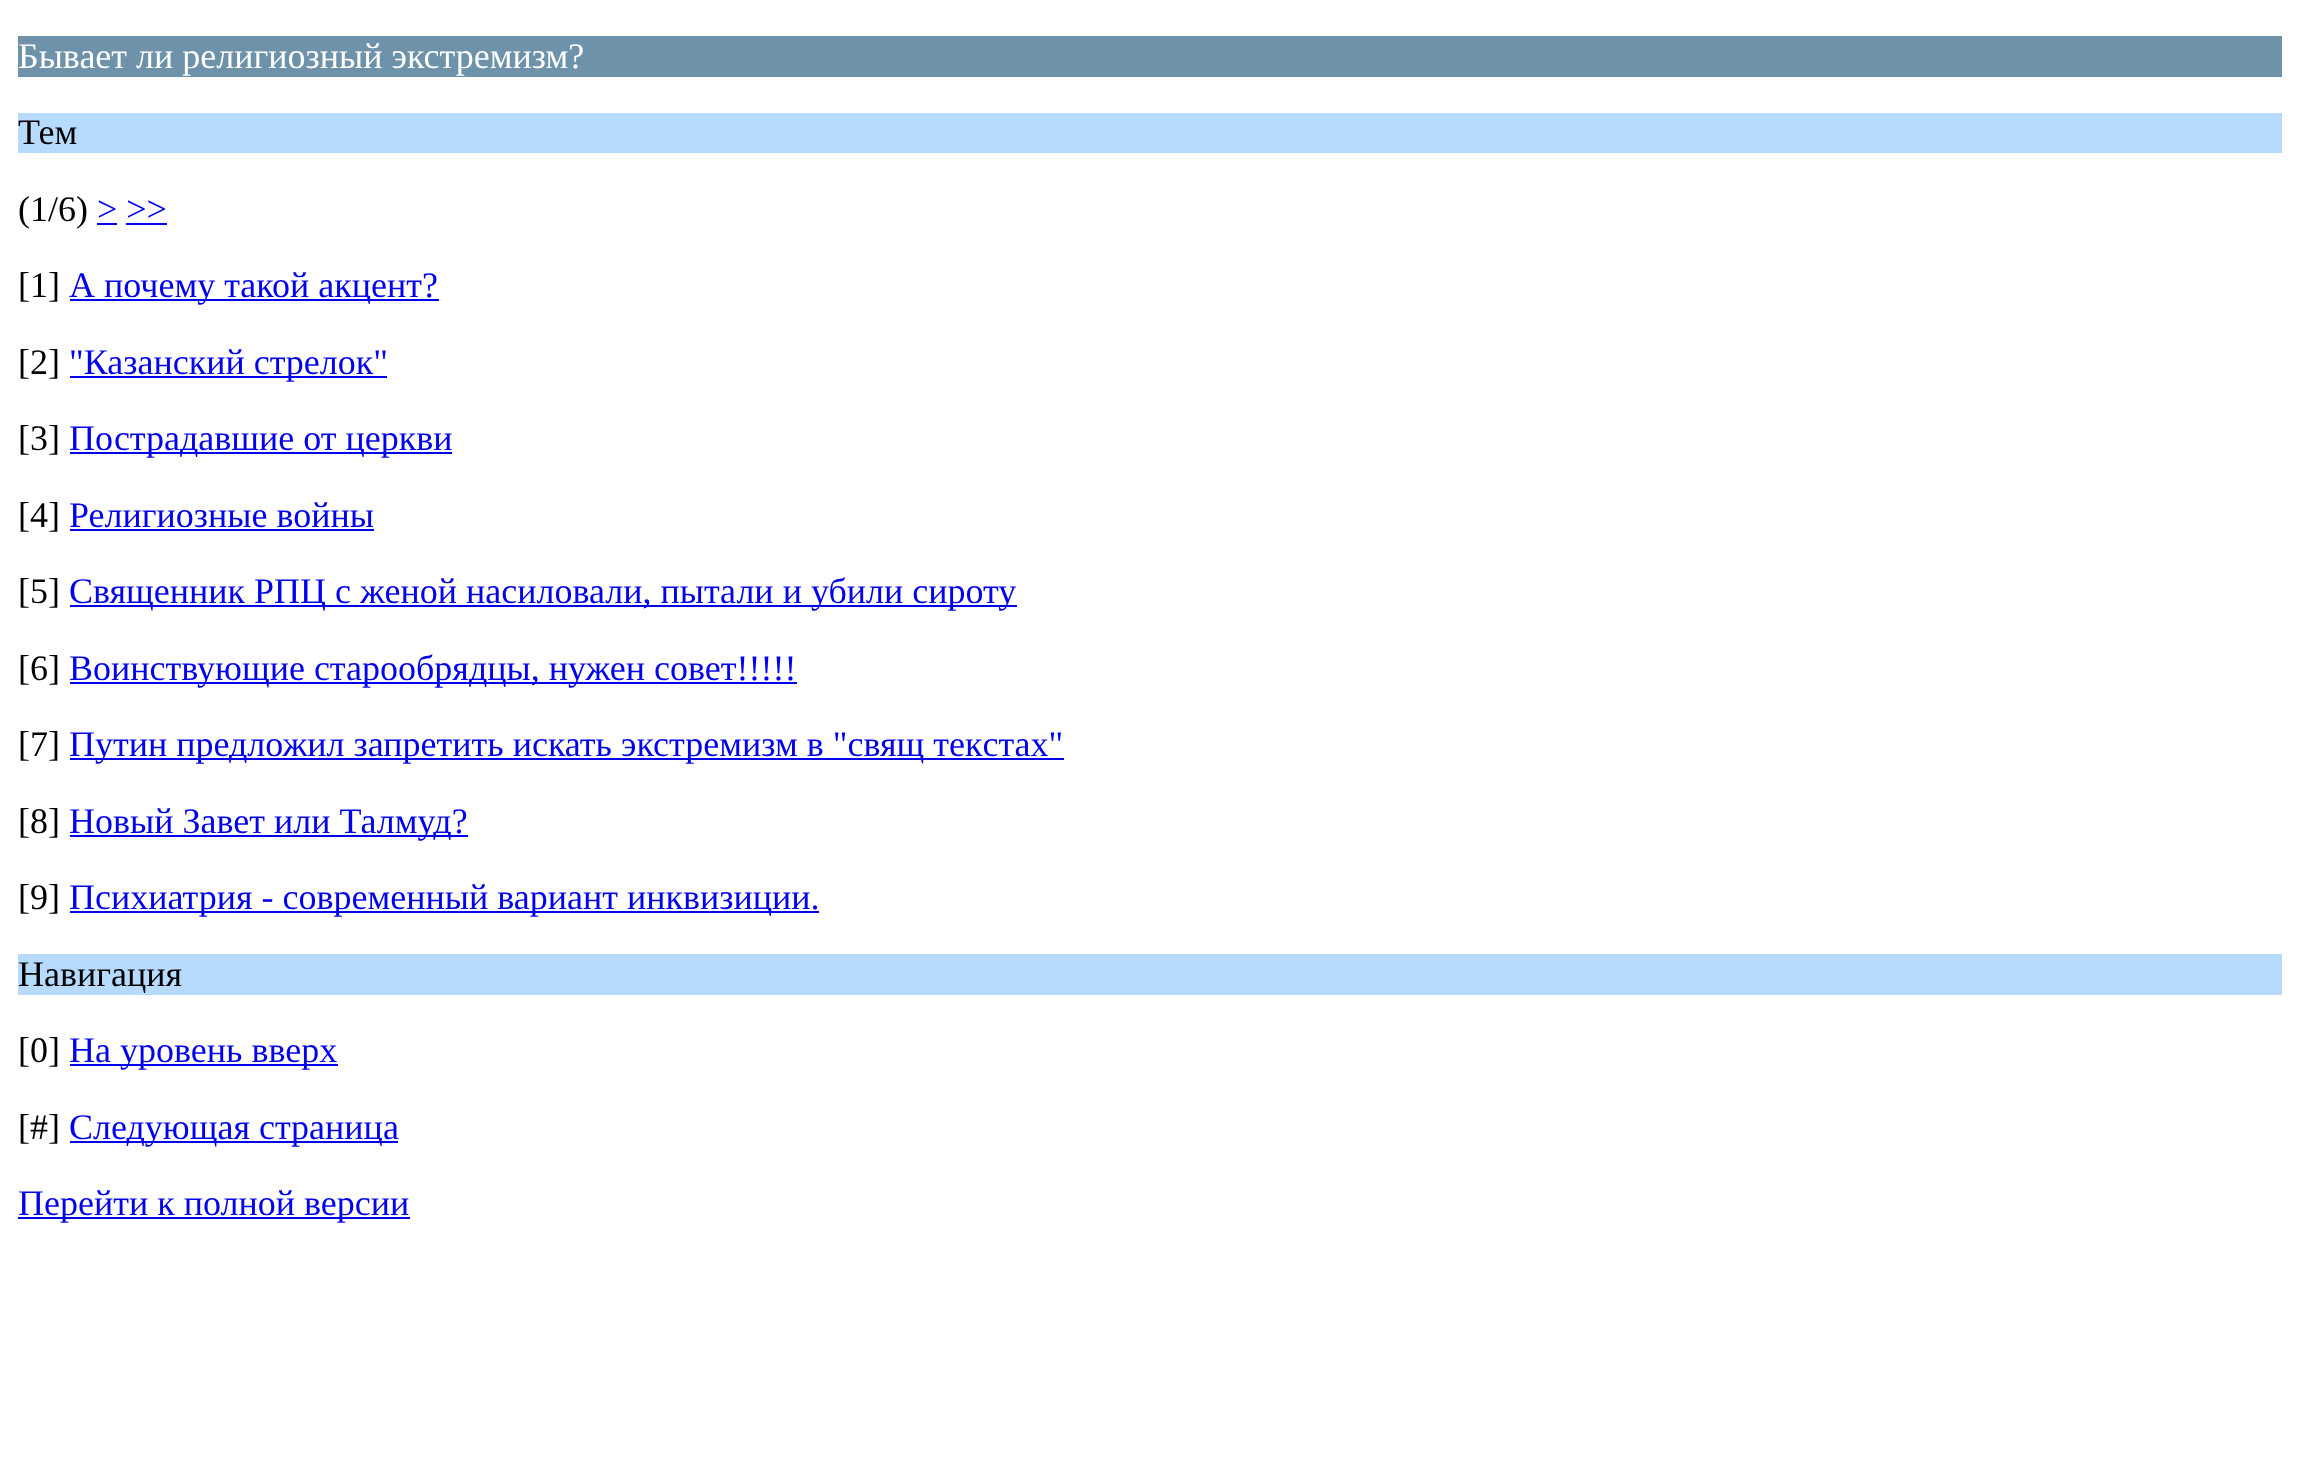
(async () => {
  const canvas = document.querySelector("canvas");
  canvas.width = 2298;
  canvas.height = 1470;
  const ctx = canvas.getContext("2d");
  ctx.miterLimit = 4;
  ctx.fontKerning = "normal";

  ctx.fillStyle = "#ffffff";
  ctx.fillRect(0, 0, 2298, 1470);
  for (const [x, y, w, h, color] of [
    [18, 36, 2264, 41, "#6d92aa"],
    [18, 113, 2264, 40, "#b6dbff"],
    [97, 223, 20, 2, "#0000ee"],
    [126, 223, 41, 2, "#0000ee"],
    [70, 299, 369, 2, "#0000ee"],
    [70, 376, 317, 2, "#0000ee"],
    [70, 452, 382, 2, "#0000ee"],
    [70, 529, 304, 2, "#0000ee"],
    [70, 605, 947, 2, "#0000ee"],
    [70, 682, 727, 2, "#0000ee"],
    [70, 758, 994, 2, "#0000ee"],
    [70, 835, 398, 2, "#0000ee"],
    [70, 911, 749, 2, "#0000ee"],
    [18, 954, 2264, 41, "#b6dbff"],
    [70, 1064, 268, 2, "#0000ee"],
    [70, 1141, 328, 2, "#0000ee"],
    [18, 1217, 392, 2, "#0000ee"],
  ]) {
    ctx.fillStyle = color;
    ctx.fillRect(x, y, w, h);
  }
  ctx.font = "36px Liberation Serif";
  ctx.fillStyle = "#ffffff";
  ctx.fillText("Бывает ли религиозный экстремизм?", 18, 68);
  ctx.fillStyle = "#000000";
  ctx.fillText("Тем", 18, 144);
  ctx.fillText("(1/6)", 18, 221);
  ctx.fillStyle = "#0000ee";
  ctx.fillText("> >>", 97, 221);
  ctx.fillStyle = "#000000";
  ctx.fillText("[1]", 18, 297);
  ctx.fillStyle = "#0000ee";
  ctx.fillText("А почему такой акцент?", 69, 297);
  ctx.fillStyle = "#000000";
  ctx.fillText("[2]", 18, 374);
  ctx.fillStyle = "#0000ee";
  ctx.fillText("\"Казанский стрелок\"", 69, 374);
  ctx.fillStyle = "#000000";
  ctx.fillText("[3]", 18, 450);
  ctx.fillStyle = "#0000ee";
  ctx.fillText("Пострадавшие от церкви", 69, 450);
  ctx.fillStyle = "#000000";
  ctx.fillText("[4]", 18, 527);
  ctx.fillStyle = "#0000ee";
  ctx.fillText("Религиозные войны", 69, 527);
  ctx.fillStyle = "#000000";
  ctx.fillText("[5]", 18, 603);
  ctx.fillStyle = "#0000ee";
  ctx.fillText("Священник РПЦ с женой насиловали, пытали и убили сироту", 69, 603);
  ctx.fillStyle = "#000000";
  ctx.fillText("[6]", 18, 680);
  ctx.fillStyle = "#0000ee";
  ctx.fillText("Воинствующие старообрядцы, нужен совет!!!!!", 69, 680);
  ctx.fillStyle = "#000000";
  ctx.fillText("[7]", 18, 756);
  ctx.fillStyle = "#0000ee";
  ctx.fillText("Путин предложил запретить искать экстремизм в \"свящ текcтах\"", 69, 756);
  ctx.fillStyle = "#000000";
  ctx.fillText("[8]", 18, 833);
  ctx.fillStyle = "#0000ee";
  ctx.fillText("Новый Завет или Талмуд?", 69, 833);
  ctx.fillStyle = "#000000";
  ctx.fillText("[9]", 18, 909);
  ctx.fillStyle = "#0000ee";
  ctx.fillText("Психиатрия - современный вариант инквизиции.", 69, 909);
  ctx.fillStyle = "#000000";
  ctx.fillText("Навигация", 18, 986);
  ctx.fillText("[0]", 18, 1062);
  ctx.fillStyle = "#0000ee";
  ctx.fillText("На уровень вверх", 69, 1062);
  ctx.fillStyle = "#000000";
  ctx.fillText("[#]", 18, 1139);
  ctx.fillStyle = "#0000ee";
  ctx.fillText("Следующая страница", 69, 1139);
  ctx.fillText("Перейти к полной версии", 18, 1215);
})();
